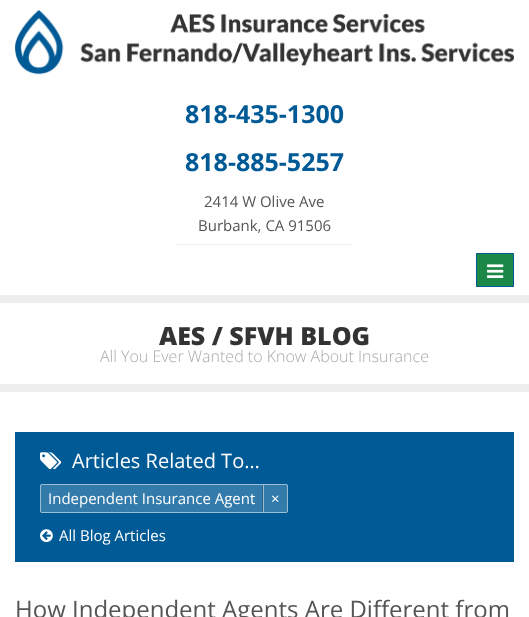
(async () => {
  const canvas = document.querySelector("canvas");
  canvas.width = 529;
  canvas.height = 617;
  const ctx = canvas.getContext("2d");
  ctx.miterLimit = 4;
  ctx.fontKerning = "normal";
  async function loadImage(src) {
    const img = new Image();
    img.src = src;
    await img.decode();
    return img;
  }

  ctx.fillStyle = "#ffffff";
  ctx.fillRect(0, 0, 529, 617);
  ctx.fillStyle = "#eeeeee";
  ctx.fillRect(0, 295, 529, 8);
  ctx.drawImage(await loadImage("img/1.png"), 15, 10, 499, 65);
  ctx.fillRect(176, 244, 177, 1);
  ctx.fillStyle = "#1b8847";
  ctx.beginPath();
  ctx.rect(476.5, 253.5, 37, 33);
  ctx.fill();
  ctx.strokeStyle = "#005a96";
  ctx.stroke();
  ctx.drawImage(await loadImage("img/2.png"), 487, 264, 17, 14);
  ctx.fillStyle = "#eeeeee";
  ctx.fillRect(0, 384, 529, 8);
  ctx.fillStyle = "#005a96";
  ctx.fillRect(15, 432, 499, 130);
  ctx.drawImage(await loadImage("img/3.png"), 40, 452, 22, 18);
  ctx.fillStyle = "#337bab";
  ctx.beginPath();
  ctx.roundRect(40, 484, 248, 29, 2);
  ctx.fill();
  ctx.beginPath();
  ctx.roundRect(40.5, 484.5, 247, 28, 1.5);
  ctx.strokeStyle = "rgba(255, 255, 255, 0.5)";
  ctx.stroke();
  ctx.fillStyle = "#296289";
  ctx.fillRect(262, 485, 1, 27);
  ctx.fillStyle = "#99bdd5";
  ctx.fillRect(263, 485, 1, 27);
  ctx.drawImage(await loadImage("img/4.png"), 40, 529, 13, 14);
  ctx.font = "bold 25px Open Sans";
  ctx.fillStyle = "#005a96";
  ctx.fillText("818-435-1300", 185, 123);
  ctx.fillText("818-885-5257", 185, 171);
  ctx.font = "15px Open Sans";
  ctx.fillStyle = "#555555";
  ctx.fillText("2414 W Olive Ave", 204, 207);
  ctx.fillText("Burbank, CA 91506", 198, 231);
  ctx.font = "800 25px Open Sans";
  ctx.fillStyle = "#333333";
  ctx.fillText("AES / SFVH BLOG", 159, 345);
  ctx.font = "300 16px Open Sans";
  ctx.fillStyle = "#aaaaaa";
  ctx.fillText("All You Ever Wanted to Know About Insurance", 100, 362);
  ctx.font = "20px Open Sans";
  ctx.fillStyle = "#ffffff";
  ctx.fillText("Articles Related To…", 72, 468);
  ctx.font = "15px Open Sans";
  for (const [text, x, y] of [
    ["Independent Insurance Agent", 48, 504],
    ["×", 271, 504],
    ["All Blog Articles", 59, 541],
  ]) {
    ctx.fillText(text, x, y);
  }
  ctx.font = "24px Open Sans";
  ctx.fillStyle = "#555555";
  ctx.fillText("How Independent Agents Are Different from", 15, 618);
})();
